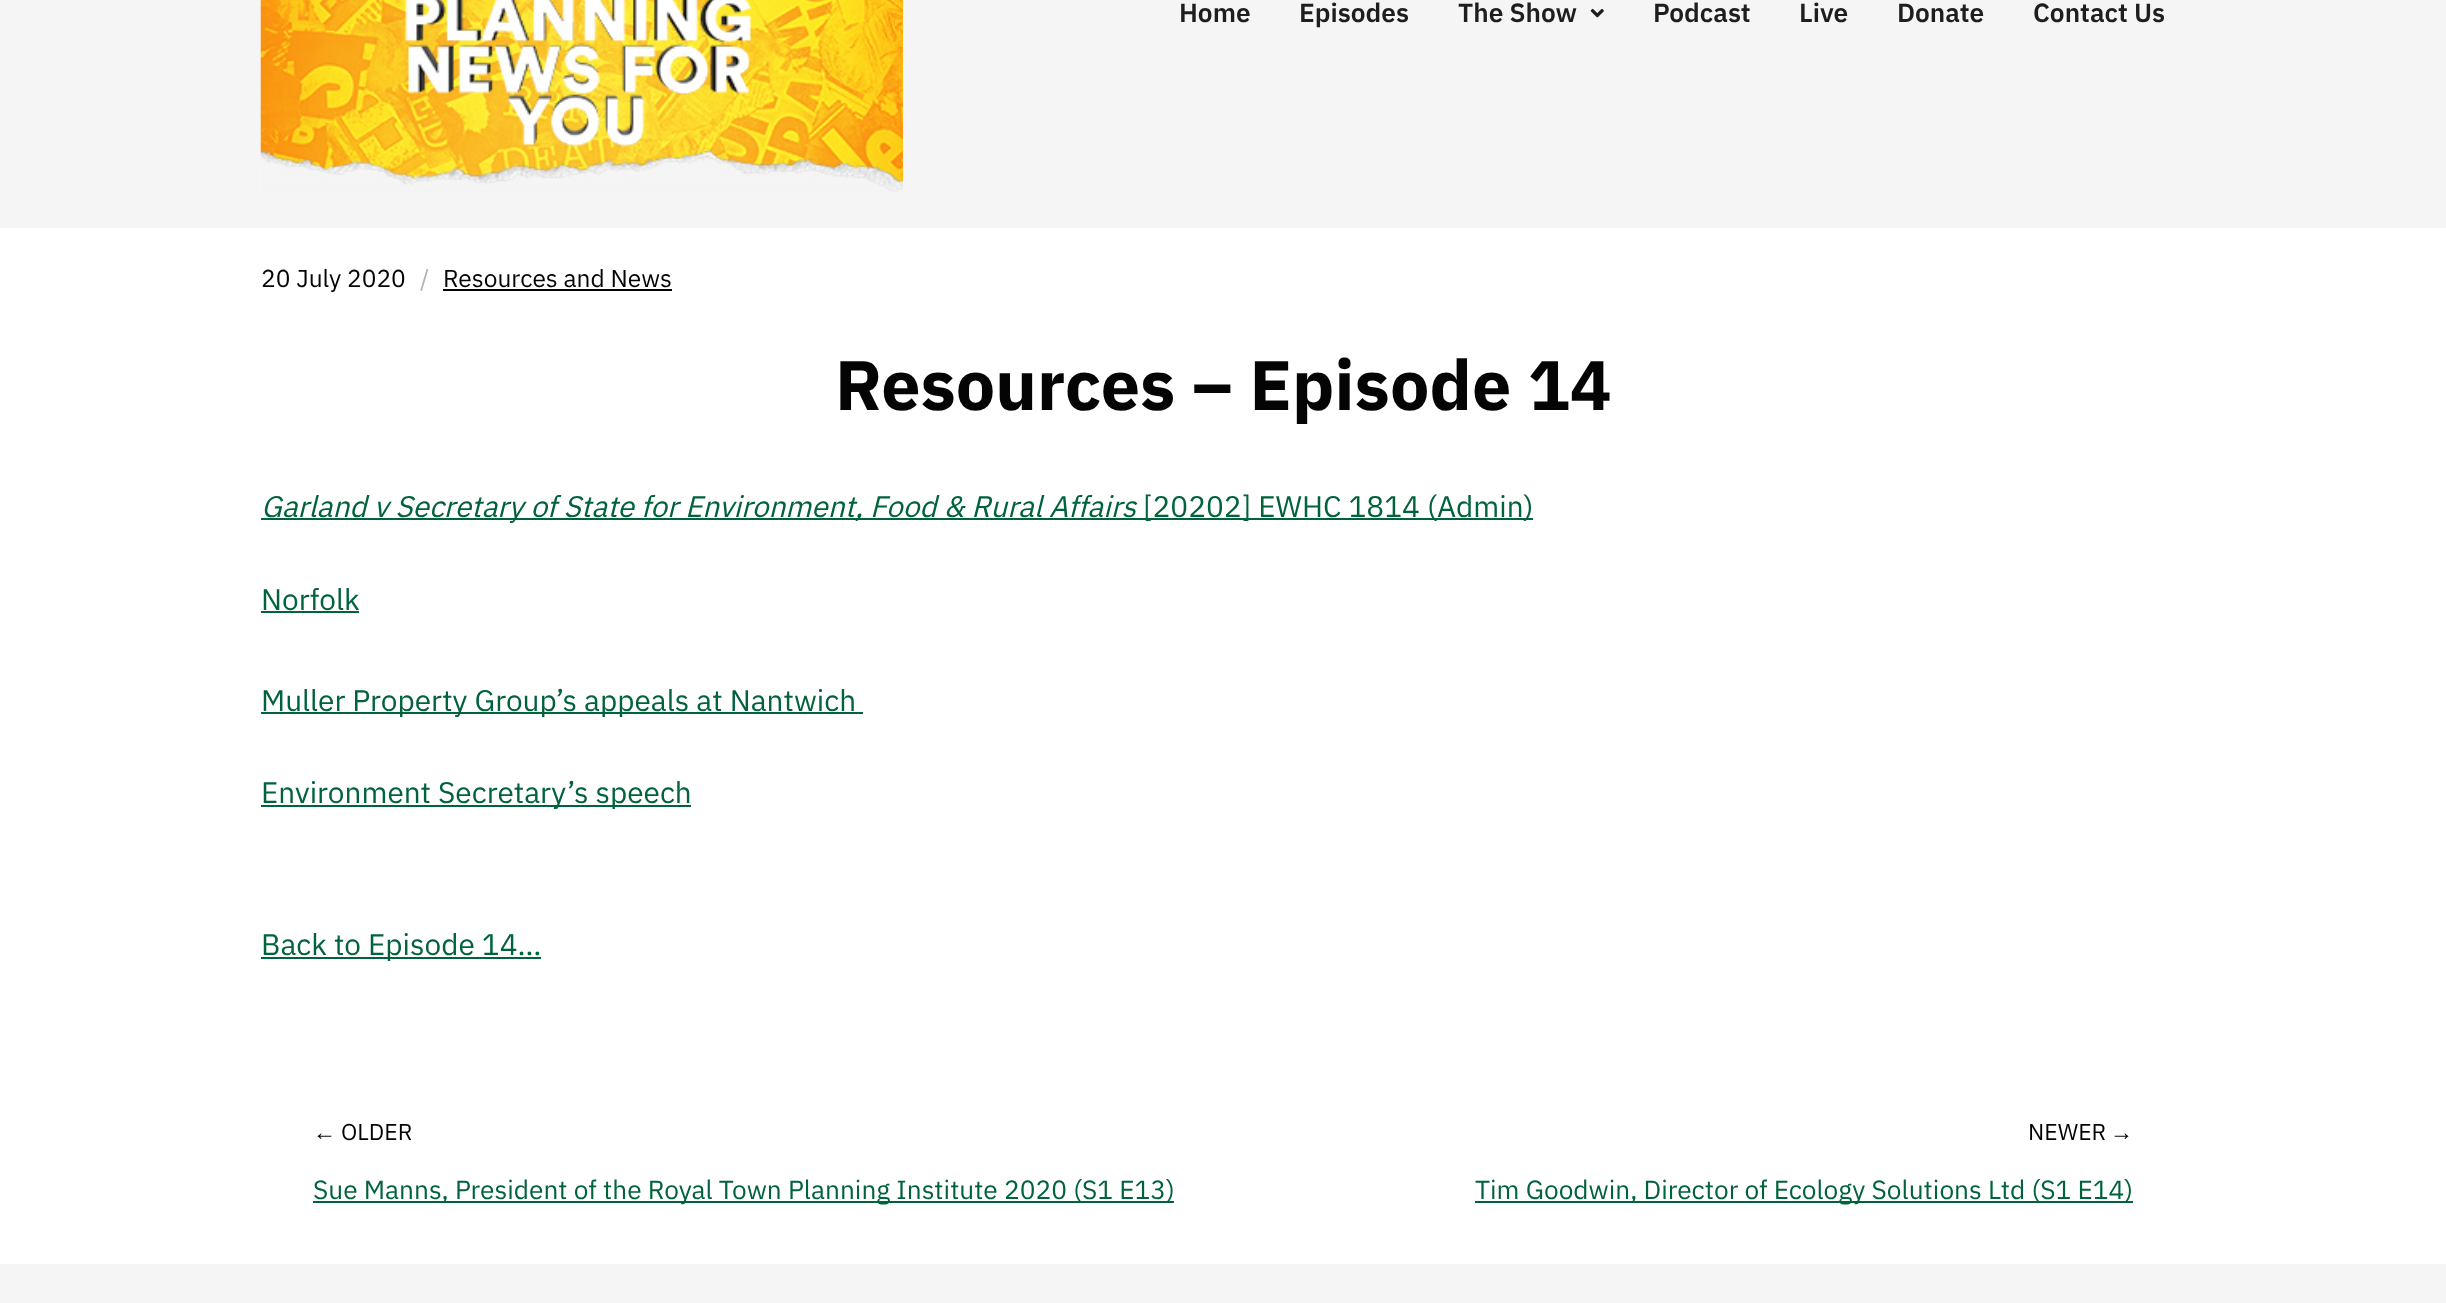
(async () => {
  const canvas = document.querySelector("canvas");
  canvas.width = 2446;
  canvas.height = 1303;
  const ctx = canvas.getContext("2d");
  ctx.miterLimit = 4;
  ctx.fontKerning = "normal";
  async function loadImage(src) {
    const img = new Image();
    img.src = src;
    await img.decode();
    return img;
  }

  ctx.fillStyle = "#ffffff";
  ctx.fillRect(0, 0, 2446, 1303);
  ctx.fillStyle = "#f5f5f5";
  ctx.fillRect(0, 0, 2446, 228);
  ctx.drawImage(await loadImage("img/1.png"), 260, 0, 643, 192);
  ctx.drawImage(await loadImage("img/2.png"), 1590, 8, 14, 10);
  for (const [x, y, w, h, color] of [
    [443, 289, 229, 2, "#040404"],
    [261, 518, 875, 2, "#00633b"],
    [1136, 518, 397, 2, "#00633b"],
    [261, 611, 98, 2, "#00633b"],
    [261, 712, 602, 2, "#00633b"],
    [261, 805, 430, 2, "#00633b"],
    [261, 957, 280, 2, "#00633b"],
    [313, 1201, 861, 2, "#00633b"],
    [1475, 1201, 658, 2, "#00633b"],
    [0, 1264, 2446, 39, "#f5f5f5"],
  ]) {
    ctx.fillStyle = color;
    ctx.fillRect(x, y, w, h);
  }
  ctx.font = "600 26.25px IBM Plex Sans";
  ctx.fillStyle = "#1e1e1e";
  for (const [text, x, y] of [
    ["Home", 1179, 22],
    ["Episodes", 1299, 22],
    ["The Show", 1458, 22],
    ["Podcast", 1653, 22],
    ["Live", 1799, 22],
    ["Donate", 1897, 22],
    ["Contact Us", 2033, 22],
  ]) {
    ctx.fillText(text, x, y);
  }
  ctx.font = "24.5px IBM Plex Sans";
  ctx.fillStyle = "#040404";
  ctx.fillText("20 July 2020", 261, 287);
  ctx.fillStyle = "#b3b3b3";
  ctx.fillText("/", 420, 287);
  ctx.fillStyle = "#040404";
  ctx.fillText("Resources and News", 443, 287);
  ctx.font = "bold 70px IBM Plex Sans";
  ctx.fillText("Resources – Episode 14", 835, 410);
  ctx.font = "italic 29.75px IBM Plex Sans";
  ctx.fillStyle = "#00633b";
  ctx.fillText("Garland v Secretary of State for Environment, Food & Rural Affairs", 261, 517);
  ctx.font = "29.75px IBM Plex Sans";
  for (const [text, x, y] of [
    ["[20202] EWHC 1814 (Admin)", 1143, 517],
    ["Norfolk", 261, 610],
    ["Muller Property Group’s appeals at Nantwich", 261, 711],
    ["Environment Secretary’s speech", 261, 803],
    ["Back to Episode 14…", 261, 955],
  ]) {
    ctx.fillText(text, x, y);
  }
  ctx.font = "23px Liberation Sans";
  ctx.fillStyle = "#040404";
  ctx.fillText("←", 313, 1140);
  ctx.font = "23px IBM Plex Sans";
  ctx.fillText("OLDER", 341, 1140);
  ctx.font = "26.25px IBM Plex Sans";
  ctx.fillStyle = "#00633b";
  ctx.fillText("Sue Manns, President of the Royal Town Planning Institute 2020 (S1 E13)", 313, 1199);
  ctx.font = "23px IBM Plex Sans";
  ctx.fillStyle = "#040404";
  ctx.fillText("NEWER", 2028, 1140);
  ctx.font = "23px Liberation Sans";
  ctx.fillText("→", 2110, 1140);
  ctx.font = "26.25px IBM Plex Sans";
  ctx.fillStyle = "#00633b";
  ctx.fillText("Tim Goodwin, Director of Ecology Solutions Ltd (S1 E14)", 1475, 1199);
})();
